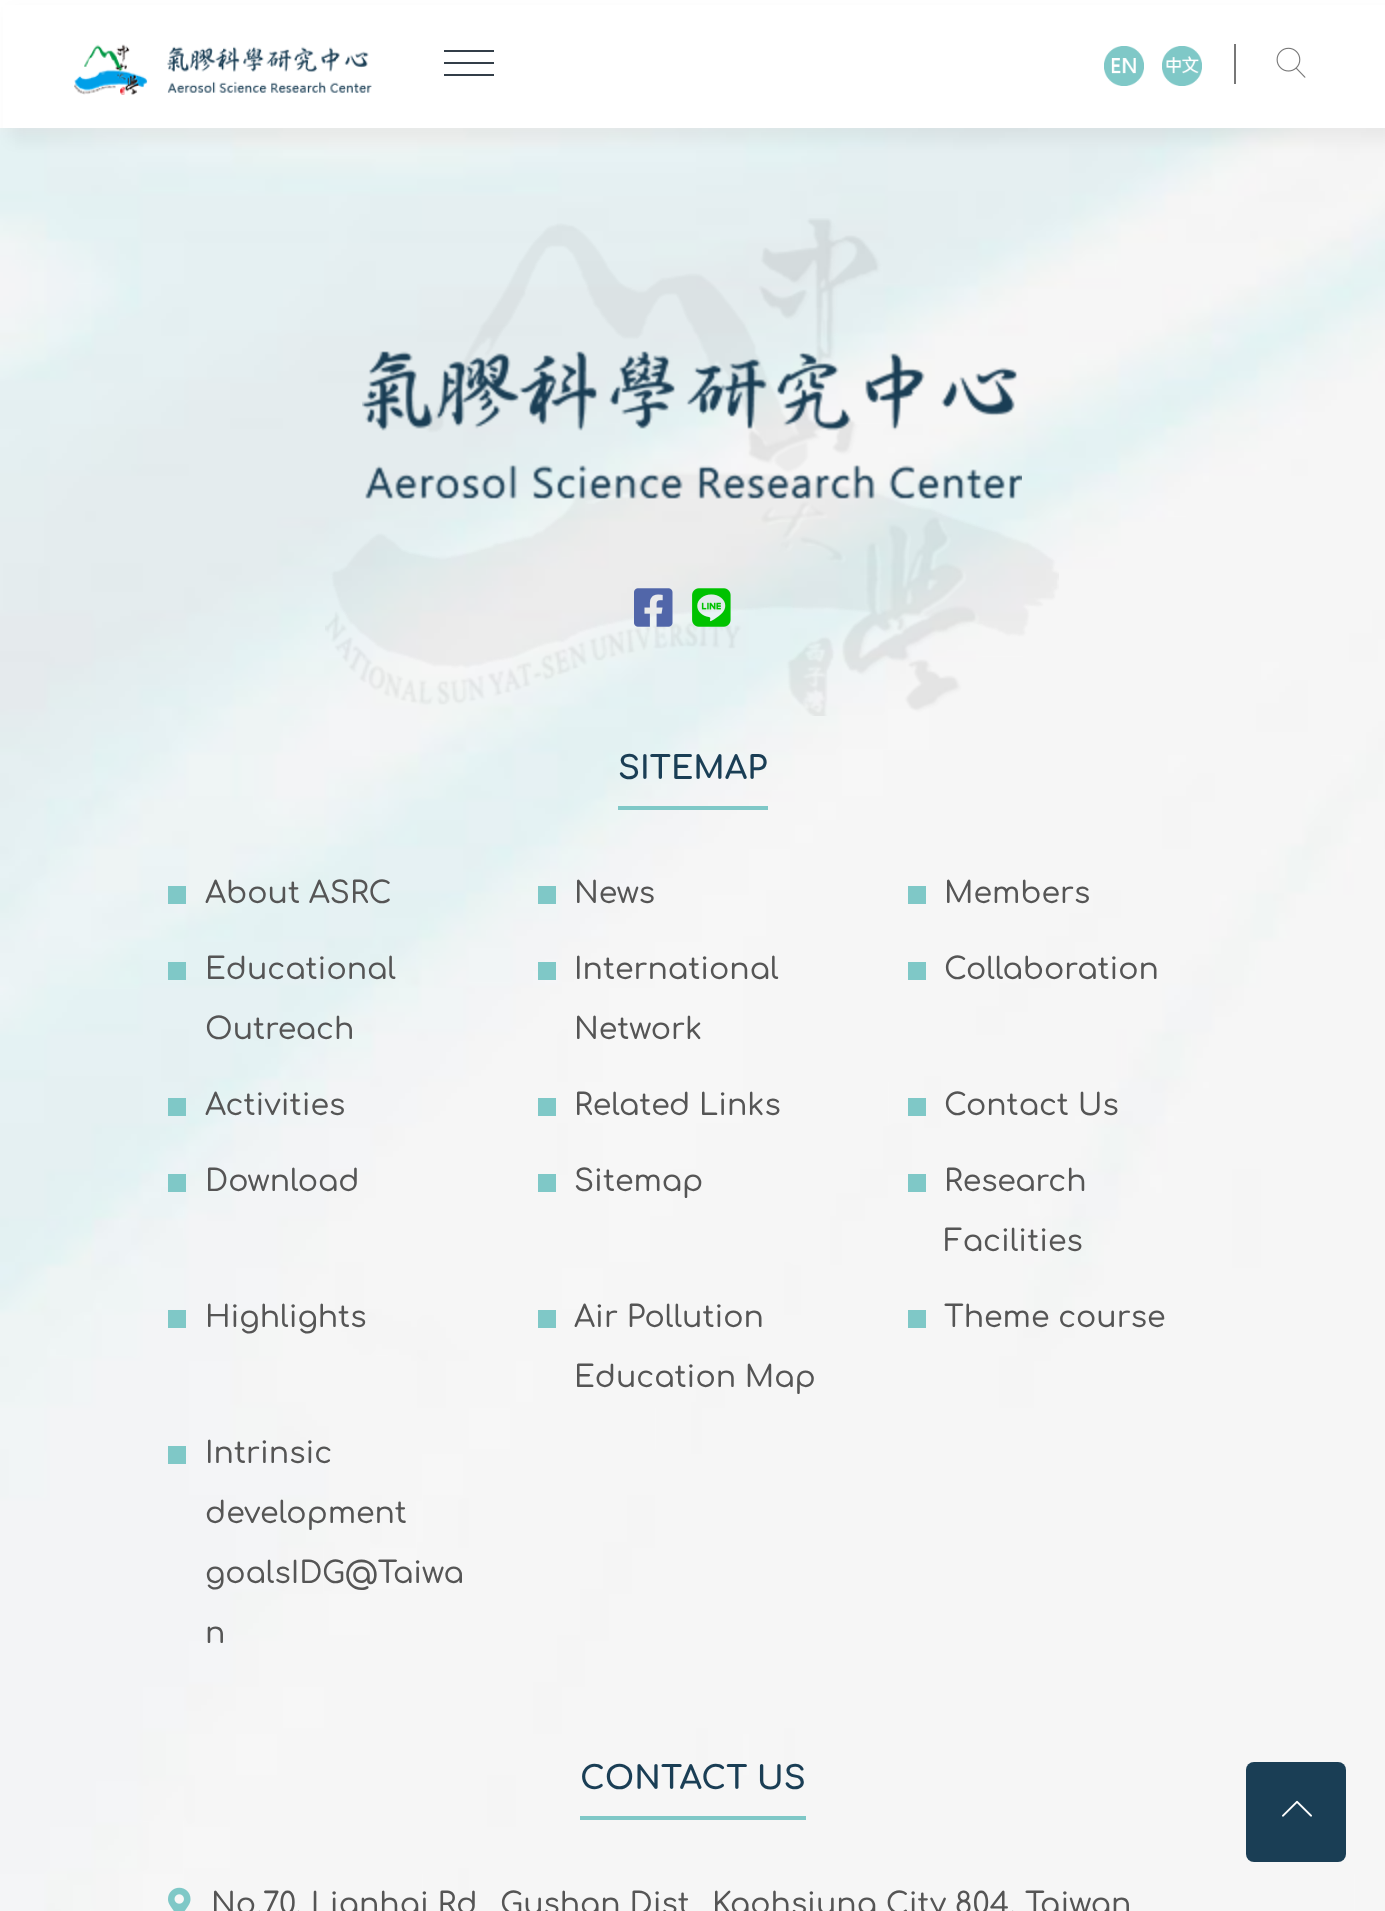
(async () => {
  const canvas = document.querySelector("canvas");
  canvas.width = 1385;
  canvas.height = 1911;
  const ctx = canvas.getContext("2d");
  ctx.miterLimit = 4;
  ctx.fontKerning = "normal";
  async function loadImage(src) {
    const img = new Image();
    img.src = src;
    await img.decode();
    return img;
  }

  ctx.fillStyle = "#ffffff";
  ctx.fillRect(0, 0, 1385, 1911);
  ctx.drawImage(await loadImage("img/5.png"), 0, 128, 1385, 1783);
  ctx.fillStyle = "rgba(0, 0, 0, 0.05)";
  ctx.filter = "blur(8px)";
  ctx.beginPath();
  ctx.rect(10, 12, 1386, 128);
  ctx.fill();
  ctx.filter = "none";
  ctx.fillStyle = "#ffffff";
  ctx.fillRect(3, 5, 1382, 123);
  ctx.drawImage(await loadImage("img/1.png"), 74, 44, 298, 51);
  for (const [x, y, w, h, color] of [
    [444, 62, 50, 2, "#333e48"],
    [444, 50, 50, 2, "#333e48"],
    [444, 74, 50, 2, "#333e48"],
  ]) {
    ctx.fillStyle = color;
    ctx.fillRect(x, y, w, h);
  }
  ctx.drawImage(await loadImage("img/2.png"), 1104, 46, 40, 40);
  ctx.drawImage(await loadImage("img/3.png"), 1162, 46, 40, 40);
  ctx.fillStyle = "#777777";
  ctx.fillRect(1234, 44, 2, 40);
  ctx.drawImage(await loadImage("img/4.png"), 1276, 47, 30, 31);
  ctx.drawImage(await loadImage("img/6.png"), 325, 218, 734, 498);
  ctx.drawImage(await loadImage("img/7.png"), 362, 351, 660, 148);
  ctx.drawImage(await loadImage("img/8.png"), 634, 588, 39, 39);
  ctx.drawImage(await loadImage("img/9.png"), 692, 588, 39, 39);
  for (const [x, y, w, h, color] of [
    [618, 806, 150, 4, "#7fc8c7"],
    [168, 886, 18, 18, "#7fc8c7"],
    [538, 886, 18, 18, "#7fc8c7"],
    [908, 886, 18, 18, "#7fc8c7"],
    [168, 962, 18, 18, "#7fc8c7"],
    [538, 962, 18, 18, "#7fc8c7"],
    [908, 962, 18, 18, "#7fc8c7"],
    [168, 1098, 18, 18, "#7fc8c7"],
    [538, 1098, 18, 18, "#7fc8c7"],
    [908, 1098, 18, 18, "#7fc8c7"],
    [168, 1174, 18, 18, "#7fc8c7"],
    [538, 1174, 18, 18, "#7fc8c7"],
    [908, 1174, 18, 18, "#7fc8c7"],
    [168, 1310, 18, 18, "#7fc8c7"],
    [538, 1310, 18, 18, "#7fc8c7"],
    [908, 1310, 18, 18, "#7fc8c7"],
    [168, 1446, 18, 18, "#7fc8c7"],
    [580, 1816, 226, 4, "#7fc8c7"],
  ]) {
    ctx.fillStyle = color;
    ctx.fillRect(x, y, w, h);
  }
  ctx.drawImage(await loadImage("img/10.png"), 168, 1887, 23, 24);
  ctx.fillStyle = "#1a3e55";
  ctx.beginPath();
  ctx.roundRect(1246, 1762, 100, 100, 8);
  ctx.fill();
  ctx.drawImage(await loadImage("img/11.png"), 1282, 1800, 30, 17);
  ctx.font = "bold 32px Comfortaa";
  ctx.fillText("SITEMAP", 618, 779);
  ctx.font = "500 30px Comfortaa";
  ctx.fillStyle = "#555555";
  for (const [text, x, y] of [
    ["About ASRC", 205, 903],
    ["News", 574, 903],
    ["Members", 944, 903],
    ["Educational", 205, 979],
    ["Outreach", 205, 1039],
    ["International", 574, 979],
    ["Network", 574, 1039],
    ["Collaboration", 944, 979],
    ["Activities", 205, 1115],
    ["Related Links", 574, 1115],
    ["Contact Us", 944, 1115],
    ["Download", 205, 1191],
    ["Sitemap", 574, 1191],
    ["Research", 944, 1191],
    ["Facilities", 944, 1251],
    ["Highlights", 205, 1327],
    ["Air Pollution", 574, 1327],
    ["Education Map", 574, 1387],
    ["Theme course", 944, 1327],
    ["Intrinsic", 205, 1463],
    ["development", 205, 1523],
    ["goalsIDG@Taiwa", 205, 1583],
    ["n", 205, 1643],
  ]) {
    ctx.fillText(text, x, y);
  }
  ctx.font = "bold 32px Comfortaa";
  ctx.fillStyle = "#1a3e55";
  ctx.fillText("CONTACT US", 580, 1789);
  ctx.font = "500 30px Comfortaa";
  ctx.fillStyle = "#555555";
  for (const [text, x, y] of [
    ["No.70, Lianhai Rd", 211, 1914],
    ["Gushan Dist", 500, 1914],
    ["Kaohsiung City 804, Taiwan", 712, 1914],
  ]) {
    ctx.fillText(text, x, y);
  }
})();
